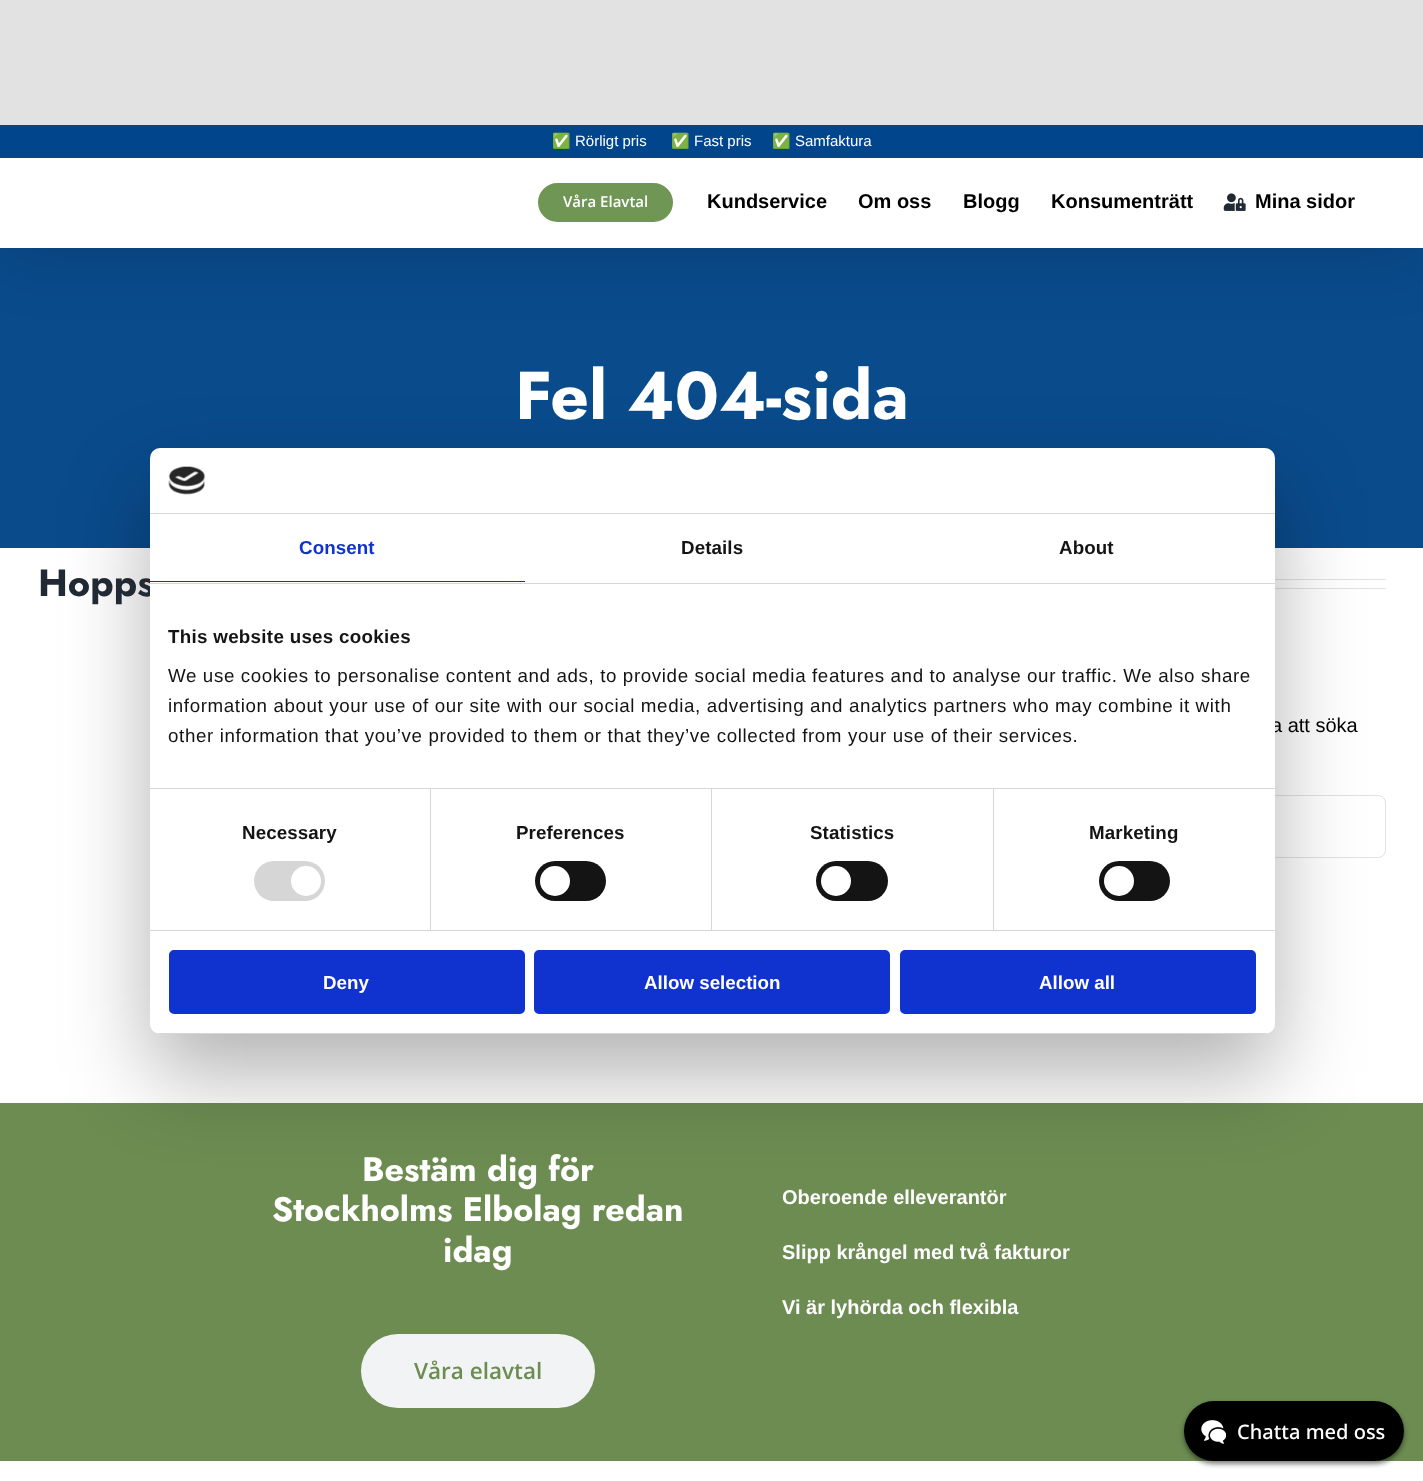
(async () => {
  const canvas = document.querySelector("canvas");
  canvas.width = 1423;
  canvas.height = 1481;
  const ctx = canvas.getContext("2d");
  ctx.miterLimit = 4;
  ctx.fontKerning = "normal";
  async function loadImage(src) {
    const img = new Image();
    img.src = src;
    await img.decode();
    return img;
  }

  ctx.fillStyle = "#e2e2e2";
  ctx.fillRect(0, 0, 1423, 1481);
  ctx.fillStyle = "#ffffff";
  ctx.fillRect(0, 548, 1423, 933);
  ctx.fillStyle = "#0a4b8c";
  ctx.fillRect(0, 248, 1423, 300);
  ctx.save();
  ctx.beginPath();
  ctx.rect(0, 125, 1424, 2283);
  ctx.clip();
  ctx.fillStyle = "rgba(0, 0, 0, 0.14)";
  ctx.filter = "blur(31px)";
  ctx.beginPath();
  ctx.rect(3, 140, 1418, 118);
  ctx.fill();
  ctx.filter = "none";
  ctx.restore();
  ctx.fillStyle = "#01468c";
  ctx.fillRect(0, 125, 1423, 33);
  ctx.fillStyle = "#ffffff";
  ctx.fillRect(0, 158, 1423, 90);
  ctx.fillStyle = "#709655";
  ctx.beginPath();
  ctx.roundRect(536.5, 181.5, 138, 42, 21);
  ctx.fill();
  ctx.strokeStyle = "#ffffff";
  ctx.lineWidth = 3;
  ctx.stroke();
  ctx.drawImage(await loadImage("img/1.png"), 1223, 193, 23, 18);
  ctx.fillStyle = "#e2e2e2";
  ctx.fillRect(1275, 579, 111, 1);
  ctx.fillRect(1275, 588, 111, 1);
  ctx.beginPath();
  ctx.roundRect(961.5, 795.5, 424, 62, 7.5);
  ctx.strokeStyle = "#e2e2e2";
  ctx.lineWidth = 1;
  ctx.stroke();
  ctx.fillStyle = "#6c8c52";
  ctx.fillRect(0, 1103, 1423, 358);
  ctx.fillStyle = "#f2f3f5";
  ctx.beginPath();
  ctx.roundRect(361, 1334, 234, 74, 37);
  ctx.fill();
  ctx.fillStyle = "rgba(0, 0, 0, 0.3)";
  ctx.filter = "blur(42.5px)";
  ctx.beginPath();
  ctx.roundRect(150, 488, 1125, 586, 10);
  ctx.fill();
  ctx.filter = "none";
  ctx.fillStyle = "rgba(0, 0, 0, 0.5)";
  ctx.filter = "blur(2.5px)";
  ctx.beginPath();
  ctx.roundRect(1184, 1404, 220, 60, 30);
  ctx.fill();
  ctx.filter = "none";
  ctx.fillStyle = "#000000";
  ctx.beginPath();
  ctx.roundRect(1184, 1401, 220, 60, 30);
  ctx.fill();
  ctx.drawImage(await loadImage("img/3.png"), 1201, 1420, 25, 24);
  ctx.font = "15px Noto Color Emoji";
  ctx.fillStyle = "#ffffff";
  ctx.fillText("✅", 552, 146);
  ctx.font = "15px Liberation Sans";
  ctx.fillText("Rörligt pris", 575, 146);
  ctx.font = "15px Noto Color Emoji";
  ctx.fillText("✅", 671, 146);
  ctx.font = "15px Liberation Sans";
  ctx.fillText("Fast pris", 694, 146);
  ctx.font = "15px Noto Color Emoji";
  ctx.fillText("✅", 772, 146);
  ctx.font = "15px Liberation Sans";
  ctx.fillText("Samfaktura", 795, 146);
  ctx.font = "600 15px Open Sans";
  ctx.fillText("Våra Elavtal", 563, 207);
  ctx.font = "bold 20px Liberation Sans";
  ctx.fillStyle = "#000000";
  for (const [text, x, y] of [
    ["Kundservice", 707, 208],
    ["Om oss", 858, 208],
    ["Blogg", 963, 208],
    ["Konsumenträtt", 1051, 208],
    ["Mina sidor", 1255, 208],
  ]) {
    ctx.fillText(text, x, y);
  }
  ctx.font = "bold 67.5px Jost";
  ctx.fillStyle = "#ffffff";
  ctx.fillText("Fel 404-sida", 515, 419);
  ctx.font = "bold 38px Jost";
  ctx.fillStyle = "#212934";
  ctx.fillText("Hopps", 38, 596);
  ctx.font = "20px Liberation Sans";
  ctx.fillStyle = "#000000";
  ctx.fillText("a att söka", 1271, 732);
  ctx.font = "bold 34px Jost";
  ctx.fillStyle = "#ffffff";
  for (const [text, x, y] of [
    ["Bestäm dig för", 362, 1181],
    ["Stockholms Elbolag redan", 272, 1221],
    ["idag", 443, 1262],
  ]) {
    ctx.fillText(text, x, y);
  }
  ctx.font = "600 22.5px Open Sans";
  ctx.fillStyle = "#6c8c52";
  ctx.fillText("Våra elavtal", 414, 1379);
  ctx.font = "bold 20px Liberation Sans";
  ctx.fillStyle = "#ffffff";
  for (const [text, x, y] of [
    ["Oberoende elleverantör", 782, 1204],
    ["Slipp krångel med två fakturor", 782, 1259],
    ["Vi är lyhörda och flexibla", 782, 1314],
  ]) {
    ctx.fillText(text, x, y);
  }
  ctx.beginPath();
  ctx.roundRect(150, 448, 1125, 586, 10);
  ctx.fill();
  ctx.fillStyle = "#d6d6d6";
  ctx.fillRect(150, 513, 1125, 1);
  ctx.drawImage(await loadImage("img/2.png"), 168, 466, 38, 29);
  ctx.fillRect(150, 583, 1125, 1);
  ctx.fillStyle = "#1032cf";
  ctx.fillRect(150, 581, 375, 1);
  ctx.letterSpacing = "0.1px";
  ctx.font = "bold 18.75px Liberation Sans";
  ctx.fillText("Consent", 299, 554);
  ctx.fillStyle = "#141414";
  ctx.fillText("Details", 681, 554);
  ctx.fillText("About", 1059, 554);
  ctx.fillStyle = "#d6d6d6";
  ctx.fillRect(150, 788, 1125, 1);
  ctx.letterSpacing = "0.3px";
  ctx.fillStyle = "#141414";
  ctx.fillText("This website uses cookies", 168, 643);
  ctx.letterSpacing = "0.62px";
  ctx.font = "18.75px Liberation Sans";
  for (const [text, x, y] of [
    ["We use cookies to personalise content and ads, to provide social media features and to analyse our traffic. We also share", 168, 682],
    ["information about your use of our site with our social media, advertising and analytics partners who may combine it with", 168, 712],
    ["other information that you’ve provided to them or that they’ve collected from your use of their services.", 168, 742],
  ]) {
    ctx.fillText(text, x, y);
  }
  ctx.fillStyle = "#d6d6d6";
  ctx.fillRect(150, 930, 1125, 1);
  ctx.fillRect(430, 789, 1, 141);
  ctx.letterSpacing = "0.1px";
  ctx.font = "bold 18.75px Liberation Sans";
  ctx.fillStyle = "#141414";
  ctx.fillText("Necessary", 242, 839);
  ctx.fillStyle = "#d6d6d6";
  ctx.beginPath();
  ctx.roundRect(254, 861, 71, 40, 20);
  ctx.fill();
  ctx.fillStyle = "#ffffff";
  ctx.beginPath();
  ctx.arc(306, 881, 15, 0, Math.PI * 2);
  ctx.fill();
  ctx.fillStyle = "#d6d6d6";
  ctx.fillRect(711, 789, 1, 141);
  ctx.fillStyle = "#141414";
  ctx.fillText("Preferences", 516, 839);
  ctx.beginPath();
  ctx.roundRect(535, 861, 71, 40, 20);
  ctx.fill();
  ctx.fillStyle = "#ffffff";
  ctx.beginPath();
  ctx.arc(555, 881, 15, 0, Math.PI * 2);
  ctx.fill();
  ctx.fillStyle = "#d6d6d6";
  ctx.fillRect(993, 789, 1, 141);
  ctx.fillStyle = "#141414";
  ctx.fillText("Statistics", 810, 839);
  ctx.beginPath();
  ctx.roundRect(816, 861, 72, 40, 20);
  ctx.fill();
  ctx.fillStyle = "#ffffff";
  ctx.beginPath();
  ctx.arc(836, 881, 15, 0, Math.PI * 2);
  ctx.fill();
  ctx.fillStyle = "#141414";
  ctx.fillText("Marketing", 1089, 839);
  ctx.beginPath();
  ctx.roundRect(1099, 861, 71, 40, 20);
  ctx.fill();
  ctx.fillStyle = "#ffffff";
  ctx.beginPath();
  ctx.arc(1119, 881, 15, 0, Math.PI * 2);
  ctx.fill();
  ctx.save();
  ctx.beginPath();
  ctx.roundRect(150, 448, 1125, 586, 10);
  ctx.clip();
  ctx.fillStyle = "#d6d6d6";
  ctx.fillRect(150, 1033, 1125, 1);
  ctx.restore();
  ctx.fillStyle = "#1032cf";
  ctx.beginPath();
  ctx.roundRect(170.5, 951.5, 353, 61, 3.5);
  ctx.fill();
  ctx.strokeStyle = "#1032cf";
  ctx.lineWidth = 3;
  ctx.stroke();
  ctx.letterSpacing = "0px";
  ctx.fillStyle = "#ffffff";
  ctx.fillText("Deny", 323, 989);
  ctx.fillStyle = "#1032cf";
  ctx.beginPath();
  ctx.roundRect(535.5, 951.5, 353, 61, 3.5);
  ctx.fill();
  ctx.stroke();
  ctx.fillStyle = "#ffffff";
  ctx.fillText("Allow selection", 644, 989);
  ctx.fillStyle = "#1032cf";
  ctx.beginPath();
  ctx.roundRect(901.5, 951.5, 353, 61, 3.5);
  ctx.fill();
  ctx.stroke();
  ctx.fillStyle = "#ffffff";
  ctx.fillText("Allow all", 1039, 989);
  ctx.font = "500 20px Noto Sans";
  ctx.fillText("Chatta med oss", 1237, 1439);
})();
